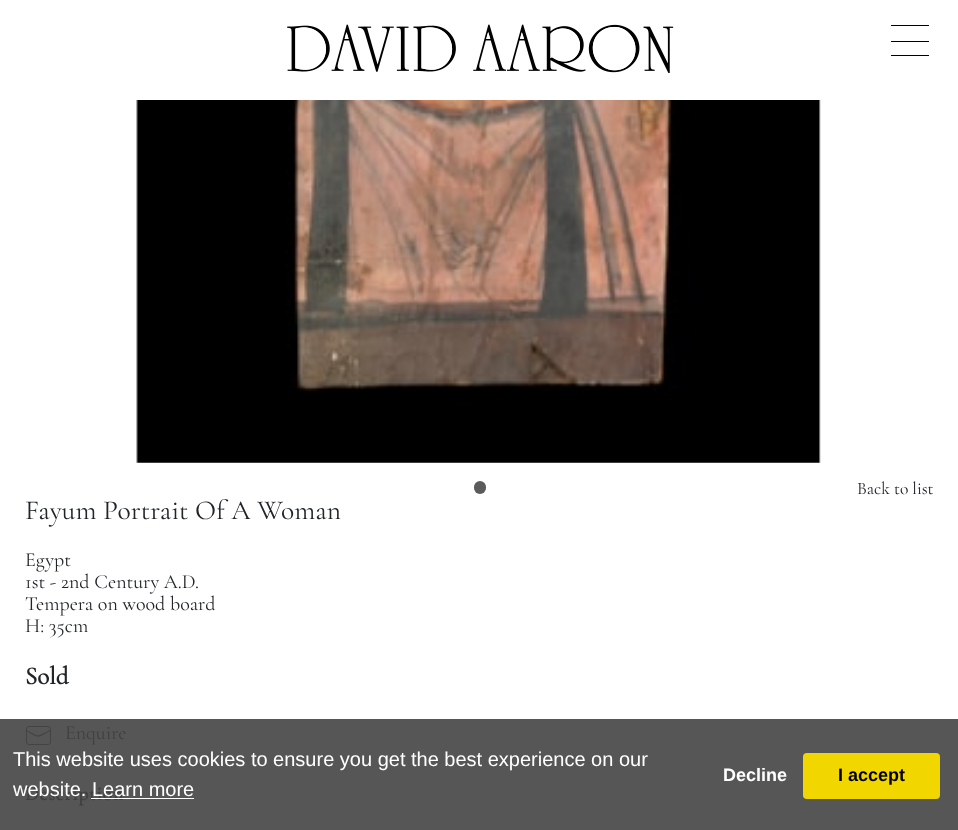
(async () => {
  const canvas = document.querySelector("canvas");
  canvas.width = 958;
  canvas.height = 830;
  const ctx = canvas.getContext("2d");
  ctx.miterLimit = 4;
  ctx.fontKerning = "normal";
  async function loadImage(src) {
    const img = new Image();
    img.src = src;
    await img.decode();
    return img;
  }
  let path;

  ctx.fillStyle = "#ffffff";
  ctx.fillRect(0, 0, 958, 830);
  ctx.fillStyle = "#565656";
  ctx.fillRect(0, 719, 958, 111);
  ctx.drawImage(await loadImage("img/1.png"), 287, 24, 387, 49);
  for (const [x, y, w, h, color] of [
    [891, 25, 38, 1, "#000000"],
    [891, 41, 38, 1, "#000000"],
    [891, 55, 38, 1, "#000000"],
  ]) {
    ctx.fillStyle = color;
    ctx.fillRect(x, y, w, h);
  }
  ctx.drawImage(await loadImage("img/2.png"), 136, 100, 685, 363);
  ctx.fillStyle = "#5b5b5b";
  ctx.beginPath();
  ctx.roundRect(474, 481, 12, 13, 6);
  ctx.fill();
  ctx.beginPath();
  ctx.roundRect(26.5, 726.5, 24, 18, 2.5);
  ctx.strokeStyle = "#444444";
  ctx.stroke();
  path = new Path2D("M26 730.5C41 738 35.5 738 50 730.5");
  ctx.lineWidth = 1.2;
  ctx.stroke(path);
  ctx.fillStyle = "#f1d600";
  ctx.beginPath();
  ctx.roundRect(803, 753, 137, 46, 4);
  ctx.fill();
  ctx.font = "17.5px Cormorant Garamond";
  ctx.fillStyle = "#212529";
  ctx.fillText("Back to list", 857, 494);
  ctx.letterSpacing = "0.1px";
  ctx.font = "27.5px Cormorant Garamond";
  ctx.fillText("Fayum Portrait Of A Woman", 25, 519);
  ctx.letterSpacing = "0px";
  ctx.font = "20px Cormorant Garamond";
  for (const [text, x, y] of [
    ["Egypt", 25, 566],
    ["1st - 2nd Century A.D.", 25, 588],
    ["Tempera on wood board", 25, 610],
    ["H: 35cm", 25, 632],
  ]) {
    ctx.fillText(text, x, y);
  }
  ctx.font = "bold 25px Cormorant Garamond";
  ctx.fillText("Sold", 25, 684);
  ctx.font = "20px Cormorant Garamond";
  ctx.fillStyle = "#404040";
  ctx.fillText("Enquire", 65, 739);
  ctx.letterSpacing = "0.6px";
  ctx.font = "bold 20px Cormorant Garamond";
  ctx.fillText("Description", 25, 800);
  ctx.letterSpacing = "0px";
  ctx.font = "20px Liberation Sans";
  ctx.fillStyle = "#ffffff";
  ctx.fillText("This website uses cookies to ensure you get the best experience on our", 13, 766);
  ctx.fillText("website. Learn more", 13, 796);
  ctx.fillRect(91, 798, 103, 1);
  ctx.font = "bold 18px Liberation Sans";
  ctx.fillText("Decline", 723, 781);
  ctx.fillStyle = "#000000";
  ctx.fillText("I accept", 838, 781);
})();
